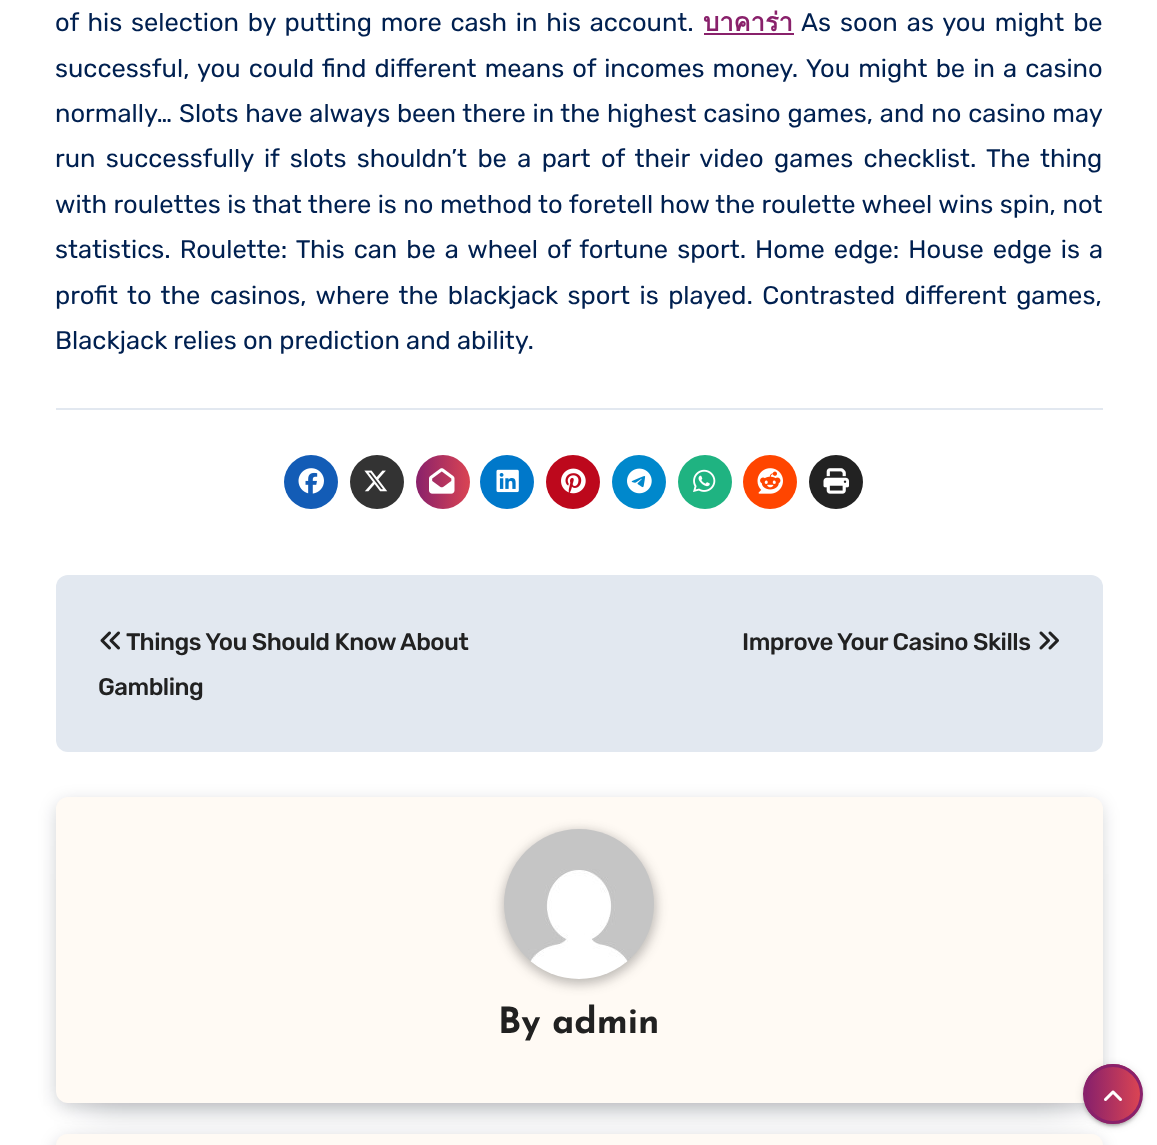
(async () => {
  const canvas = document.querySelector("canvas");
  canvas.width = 1157;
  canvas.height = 1145;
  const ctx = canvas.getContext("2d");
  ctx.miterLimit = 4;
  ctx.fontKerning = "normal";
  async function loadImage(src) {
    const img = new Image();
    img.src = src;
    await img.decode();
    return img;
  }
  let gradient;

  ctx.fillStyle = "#ffffff";
  ctx.fillRect(0, 0, 1157, 1145);
  ctx.fillStyle = "#89216b";
  ctx.fillRect(704, 33, 90, 2);
  ctx.fillStyle = "#e2e8f0";
  ctx.fillRect(56, 408, 1047, 2);
  ctx.fillStyle = "#135cb6";
  ctx.beginPath();
  ctx.arc(311, 482, 27, 0, Math.PI * 2);
  ctx.fill();
  ctx.drawImage(await loadImage("img/1.png"), 298, 468, 26, 26);
  ctx.fillStyle = "#333333";
  ctx.beginPath();
  ctx.arc(377, 482, 27, 0, Math.PI * 2);
  ctx.fill();
  ctx.drawImage(await loadImage("img/2.png"), 364, 470, 24, 22);
  gradient = ctx.createLinearGradient(416, 482, 470, 482);
  gradient.addColorStop(0, "#89216b");
  gradient.addColorStop(1, "#da4453");
  ctx.fillStyle = gradient;
  ctx.beginPath();
  ctx.arc(443, 482, 27, 0, Math.PI * 2);
  ctx.fill();
  ctx.drawImage(await loadImage("img/3.png"), 429, 468, 26, 26);
  ctx.fillStyle = "#0078ca";
  ctx.beginPath();
  ctx.arc(507, 482, 27, 0, Math.PI * 2);
  ctx.fill();
  ctx.drawImage(await loadImage("img/4.png"), 496, 469, 23, 24);
  ctx.fillStyle = "#bd081c";
  ctx.beginPath();
  ctx.arc(573, 482, 27, 0, Math.PI * 2);
  ctx.fill();
  ctx.drawImage(await loadImage("img/5.png"), 561, 468, 25, 26);
  ctx.fillStyle = "#0088cc";
  ctx.beginPath();
  ctx.arc(639, 482, 27, 0, Math.PI * 2);
  ctx.fill();
  ctx.drawImage(await loadImage("img/6.png"), 627, 468, 25, 26);
  ctx.fillStyle = "#1fb381";
  ctx.beginPath();
  ctx.arc(705, 482, 27, 0, Math.PI * 2);
  ctx.fill();
  ctx.drawImage(await loadImage("img/7.png"), 693, 469, 23, 23);
  ctx.fillStyle = "#ff4500";
  ctx.beginPath();
  ctx.arc(770, 482, 27, 0, Math.PI * 2);
  ctx.fill();
  ctx.drawImage(await loadImage("img/8.png"), 757, 468, 26, 26);
  ctx.fillStyle = "#222222";
  ctx.beginPath();
  ctx.arc(836, 482, 27, 0, Math.PI * 2);
  ctx.fill();
  ctx.drawImage(await loadImage("img/9.png"), 823, 468, 26, 26);
  ctx.fillStyle = "#e2e8f0";
  ctx.beginPath();
  ctx.roundRect(56, 575, 1047, 177, 12);
  ctx.fill();
  ctx.drawImage(await loadImage("img/10.png"), 100, 631, 20, 19);
  ctx.drawImage(await loadImage("img/11.png"), 1039, 631, 20, 19);
  ctx.fillStyle = "rgba(7, 10, 25, 0.2)";
  ctx.filter = "blur(20px)";
  ctx.beginPath();
  ctx.rect(86, 860, 987, 246);
  ctx.fill();
  ctx.filter = "none";
  ctx.filter = "blur(9px)";
  ctx.beginPath();
  ctx.roundRect(57, 803, 1044, 303, 11);
  ctx.fill();
  ctx.filter = "none";
  ctx.fillStyle = "#fffaf4";
  ctx.beginPath();
  ctx.roundRect(56, 797, 1047, 306, 12);
  ctx.fill();
  ctx.fillStyle = "rgba(33, 33, 33, 0.3)";
  ctx.filter = "blur(6px)";
  ctx.beginPath();
  ctx.roundRect(503, 831, 153, 153, 76.5);
  ctx.fill();
  ctx.filter = "none";
  ctx.drawImage(await loadImage("img/12.png"), 504, 829, 150, 150);
  ctx.fillStyle = "rgba(7, 10, 25, 0.2)";
  ctx.filter = "blur(9px)";
  ctx.beginPath();
  ctx.roundRect(57, 1140, 1044, 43, 11);
  ctx.fill();
  ctx.filter = "none";
  ctx.fillStyle = "#fffaf4";
  ctx.beginPath();
  ctx.roundRect(56, 1134, 1047, 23, 12);
  ctx.fill();
  ctx.fillStyle = "rgba(0, 0, 0, 0.12)";
  ctx.filter = "blur(4px)";
  ctx.beginPath();
  ctx.roundRect(1083, 1065, 60, 60, 30);
  ctx.fill();
  ctx.filter = "none";
  ctx.fillStyle = "rgba(0, 0, 0, 0.2)";
  ctx.filter = "blur(1px)";
  ctx.beginPath();
  ctx.roundRect(1086, 1071, 54, 54, 27);
  ctx.fill();
  ctx.filter = "none";
  ctx.fillStyle = "rgba(0, 0, 0, 0.14)";
  ctx.filter = "blur(1.5px)";
  ctx.beginPath();
  ctx.roundRect(1083, 1067, 60, 60, 30);
  ctx.fill();
  ctx.filter = "none";
  ctx.save();
  ctx.beginPath();
  ctx.roundRect(1083, 1064, 60, 60, 30);
  ctx.clip();
  gradient = ctx.createLinearGradient(1086, 1094, 1140, 1094);
  gradient.addColorStop(0, "#89216b");
  gradient.addColorStop(1, "#da4453");
  ctx.fillStyle = gradient;
  ctx.fillRect(1086, 1064, 54, 60);
  ctx.restore();
  ctx.beginPath();
  ctx.arc(1113, 1094, 28.5, 0, Math.PI * 2);
  ctx.strokeStyle = "#89216b";
  ctx.lineWidth = 3;
  ctx.stroke();
  ctx.drawImage(await loadImage("img/13.png"), 1104, 1090, 18, 11);
  ctx.wordSpacing = "2.5px";
  ctx.font = "300 25.5px Rubik";
  ctx.fillStyle = "#002050";
  ctx.fillText("of his selection by putting more cash in his account.", 55, 31);
  ctx.wordSpacing = "0px";
  ctx.font = "bold 25.5px Loma";
  ctx.fillStyle = "#89216b";
  ctx.fillText("บาคาร่า", 703, 31);
  ctx.wordSpacing = "2.75px";
  ctx.font = "300 25.5px Rubik";
  ctx.fillStyle = "#002050";
  ctx.fillText("As soon as you might be", 801, 31);
  ctx.wordSpacing = "1.9px";
  ctx.fillText("successful, you could find different means of incomes money. You might be in a casino", 55, 77);
  ctx.wordSpacing = "0.5px";
  ctx.fillText("normally… Slots have always been there in the highest casino games, and no casino may", 55, 122);
  ctx.wordSpacing = "4.1px";
  ctx.fillText("run successfully if slots shouldn’t be a part of their video games checklist. The thing", 55, 167);
  ctx.wordSpacing = "0.25px";
  ctx.fillText("with roulettes is that there is no method to foretell how the roulette wheel wins spin, not", 55, 213);
  ctx.wordSpacing = "2.75px";
  ctx.fillText("statistics. Roulette: This can be a wheel of fortune sport. Home edge: House edge is a", 55, 258);
  ctx.wordSpacing = "3.25px";
  ctx.fillText("profit to the casinos, where the blackjack sport is played. Contrasted different games,", 55, 304);
  ctx.wordSpacing = "0px";
  ctx.fillText("Blackjack relies on prediction and ability.", 55, 349);
  ctx.letterSpacing = "-0.5px";
  ctx.font = "500 24px Rubik";
  ctx.fillStyle = "#212121";
  for (const [text, x, y] of [
    ["Things You Should Know About", 126, 650],
    ["Gambling", 98, 695],
    ["Improve Your Casino Skills", 742, 650],
  ]) {
    ctx.fillText(text, x, y);
  }
  ctx.letterSpacing = "0px";
  ctx.font = "bold 36px Josefin Sans";
  ctx.fillText("By admin", 498, 1033);
})();
